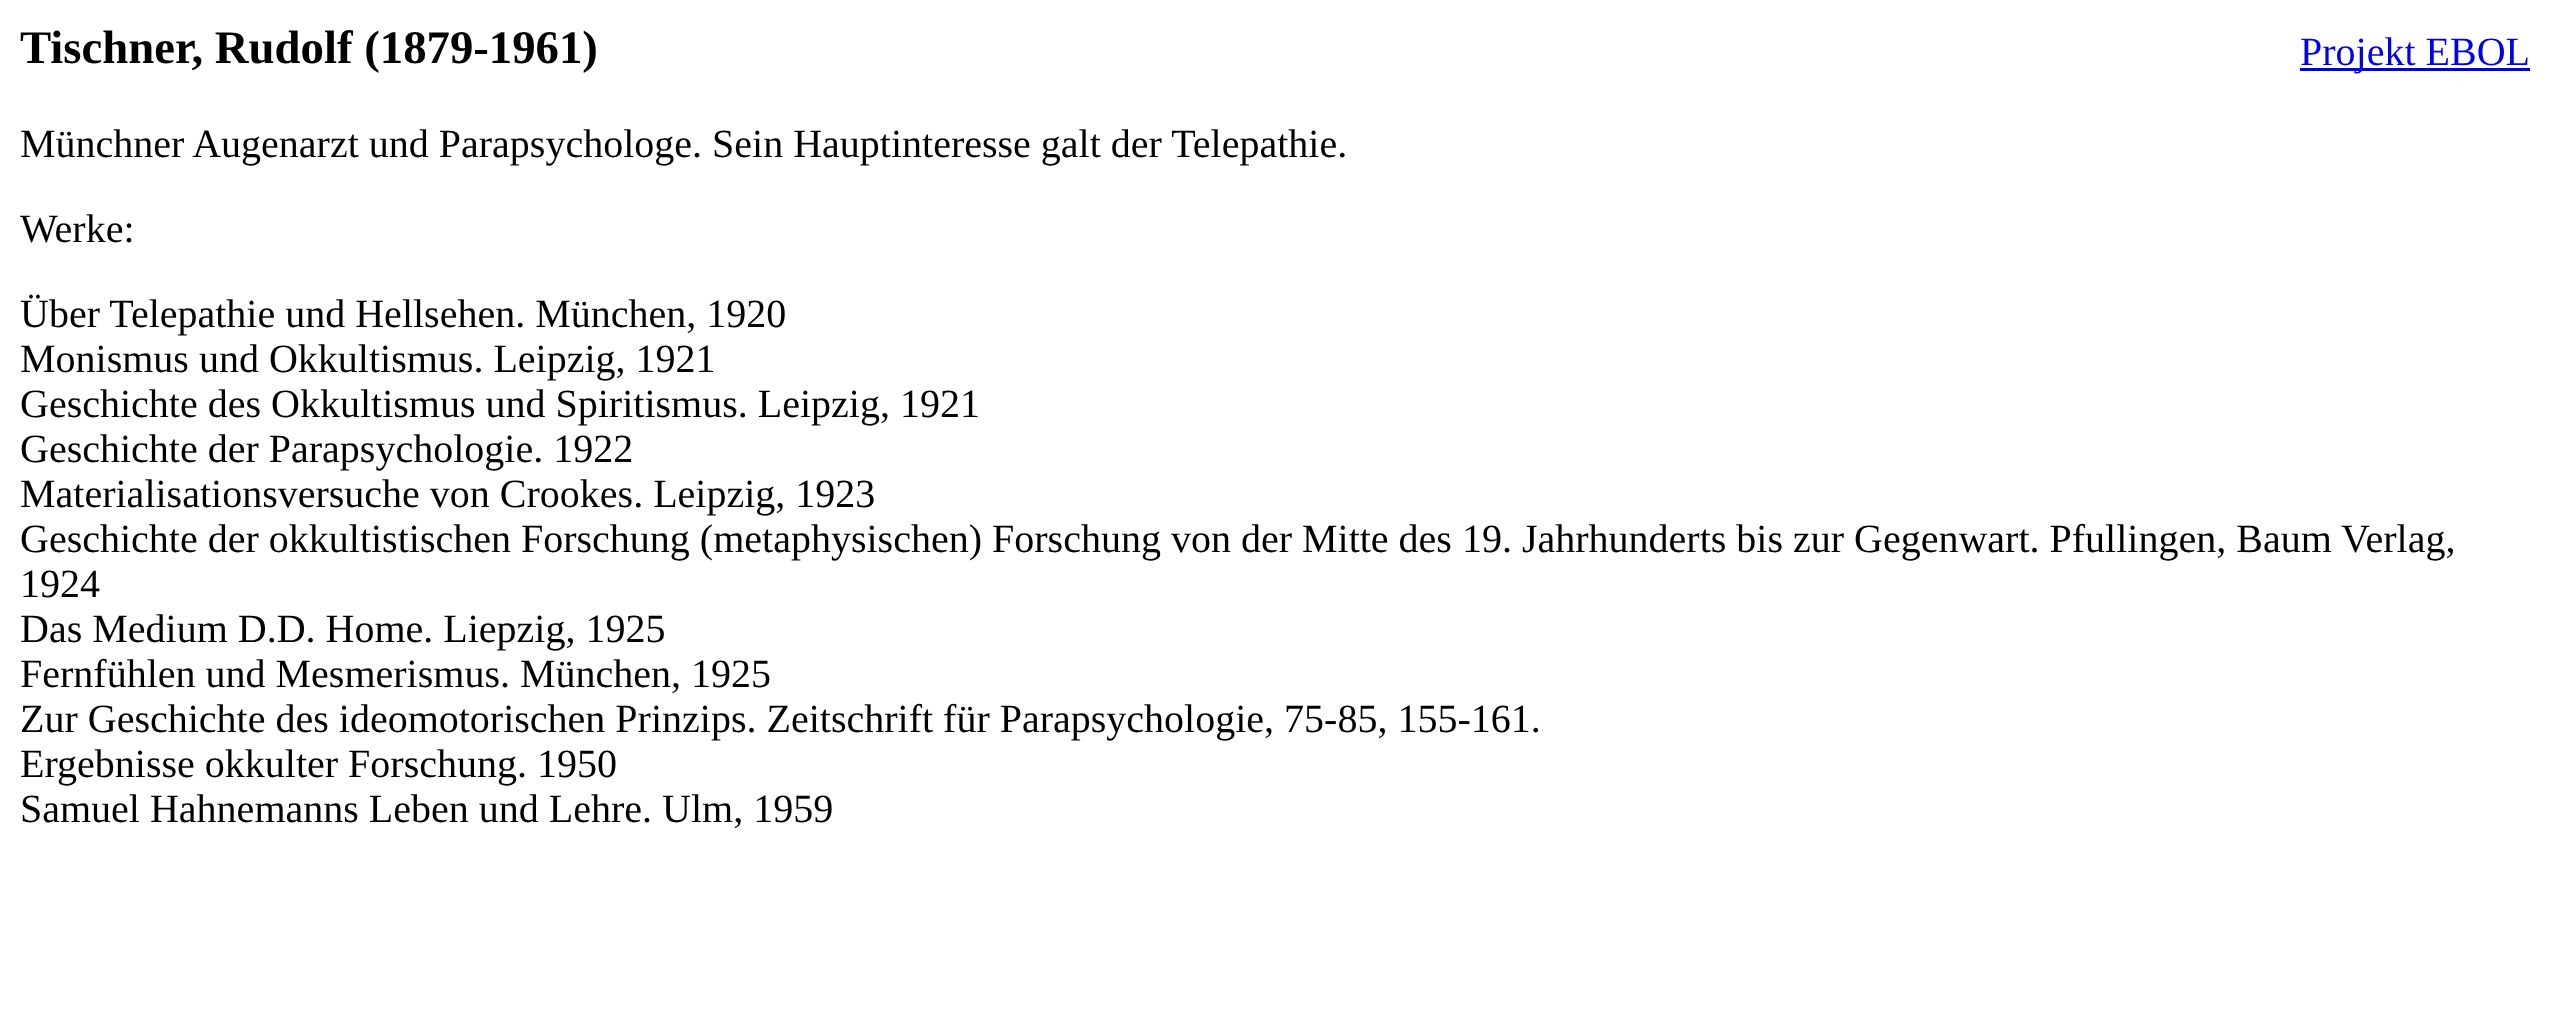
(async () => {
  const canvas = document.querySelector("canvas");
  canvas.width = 2560;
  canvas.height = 1036;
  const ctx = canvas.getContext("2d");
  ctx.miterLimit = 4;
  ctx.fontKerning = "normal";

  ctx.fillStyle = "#ffffff";
  ctx.fillRect(0, 0, 2560, 1036);
  ctx.fillStyle = "#0000ee";
  ctx.fillRect(2300, 68, 230, 3);
  ctx.font = "bold 46.75px Liberation Serif";
  ctx.fillStyle = "#000000";
  ctx.fillText("Tischner, Rudolf (1879-1961)", 20, 63);
  ctx.font = "40px Liberation Serif";
  ctx.fillStyle = "#0000ee";
  ctx.fillText("Projekt EBOL", 2300, 65);
  ctx.fillStyle = "#000000";
  for (const [text, x, y] of [
    ["Münchner Augenarzt und Parapsychologe. Sein Hauptinteresse galt der Telepathie.", 20, 157],
    ["Werke:", 20, 242],
    ["Über Telepathie und Hellsehen. München, 1920", 20, 327],
    ["Monismus und Okkultismus. Leipzig, 1921", 20, 372],
    ["Geschichte des Okkultismus und Spiritismus. Leipzig, 1921", 20, 417],
    ["Geschichte der Parapsychologie. 1922", 20, 462],
    ["Materialisationsversuche von Crookes. Leipzig, 1923", 20, 507],
    ["Geschichte der okkultistischen Forschung (metaphysischen) Forschung von der Mitte des 19. Jahrhunderts bis zur Gegenwart. Pfullingen, Baum Verlag,", 20, 552],
    ["1924", 20, 597],
    ["Das Medium D.D. Home. Liepzig, 1925", 20, 642],
    ["Fernfühlen und Mesmerismus. München, 1925", 20, 687],
    ["Zur Geschichte des ideomotorischen Prinzips. Zeitschrift für Parapsychologie, 75-85, 155-161.", 20, 732],
    ["Ergebnisse okkulter Forschung. 1950", 20, 777],
    ["Samuel Hahnemanns Leben und Lehre. Ulm, 1959", 20, 822],
  ]) {
    ctx.fillText(text, x, y);
  }
})();
